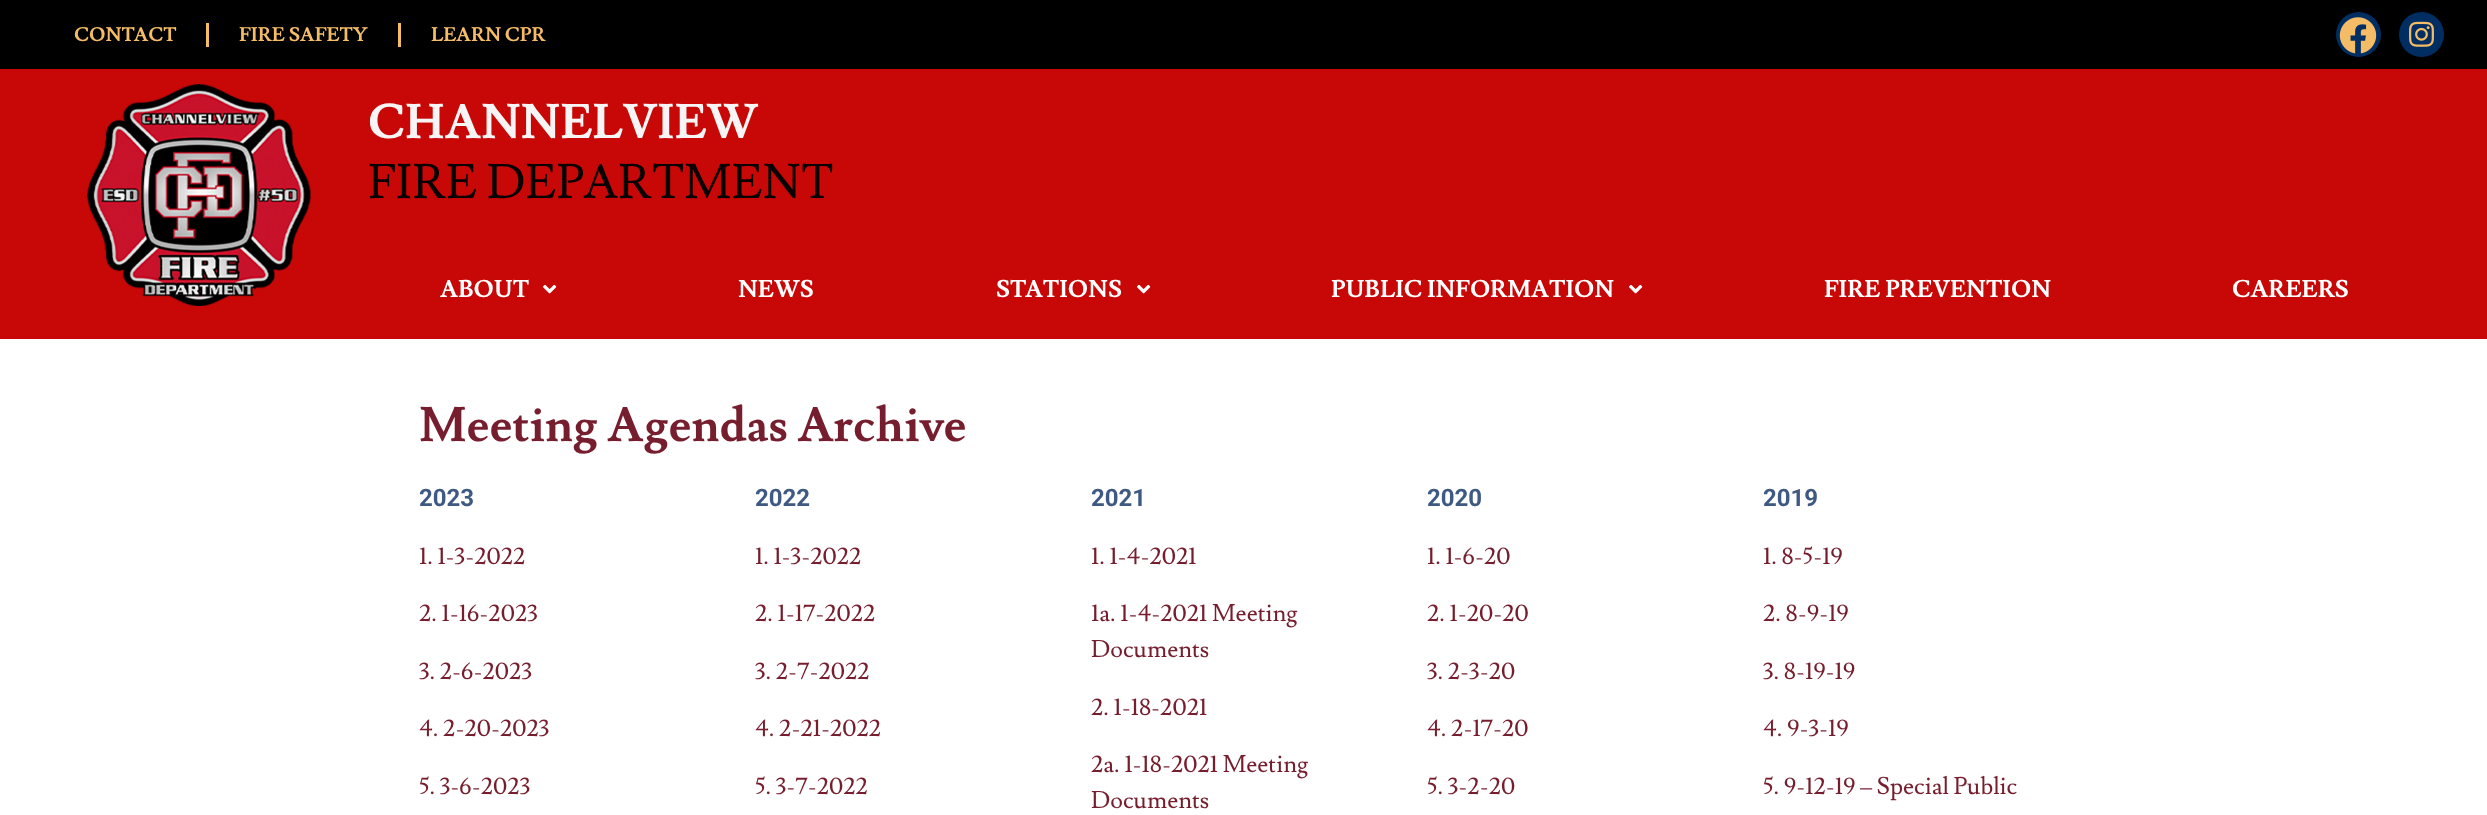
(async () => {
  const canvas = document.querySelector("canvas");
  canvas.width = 2487;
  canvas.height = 815;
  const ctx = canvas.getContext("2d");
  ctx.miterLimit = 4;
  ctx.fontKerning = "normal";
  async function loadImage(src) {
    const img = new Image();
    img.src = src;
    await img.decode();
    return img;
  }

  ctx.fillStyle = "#ffffff";
  ctx.fillRect(0, 0, 2487, 815);
  for (const [x, y, w, h, color] of [
    [0, 0, 2487, 69, "#000000"],
    [206, 23, 3, 24, "#f4bc66"],
    [398, 23, 3, 24, "#f4bc66"],
  ]) {
    ctx.fillStyle = color;
    ctx.fillRect(x, y, w, h);
  }
  ctx.fillStyle = "#002e62";
  ctx.beginPath();
  ctx.arc(2358.5, 34.5, 22.5, 0, Math.PI * 2);
  ctx.fill();
  ctx.drawImage(await loadImage("img/1.png"), 2339, 17, 38, 37);
  ctx.beginPath();
  ctx.arc(2421.5, 34.5, 22.5, 0, Math.PI * 2);
  ctx.fill();
  ctx.drawImage(await loadImage("img/2.png"), 2409, 21, 25, 26);
  ctx.fillStyle = "#c80707";
  ctx.fillRect(0, 69, 2487, 270);
  ctx.drawImage(await loadImage("img/3.png"), 87, 84, 224, 222);
  ctx.drawImage(await loadImage("img/4.png"), 543, 284, 14, 10);
  ctx.drawImage(await loadImage("img/4.png"), 1137, 284, 14, 10);
  ctx.drawImage(await loadImage("img/4.png"), 1629, 284, 14, 10);
  ctx.font = "bold 19.5px Lusitana";
  ctx.fillStyle = "#f4bc66";
  for (const [text, x, y] of [
    ["CONTACT", 74, 41],
    ["FIRE SAFETY", 239, 41],
    ["LEARN CPR", 431, 41],
  ]) {
    ctx.fillText(text, x, y);
  }
  ctx.font = "bold 48px Lusitana";
  ctx.fillStyle = "#f6f4f4";
  ctx.fillText("CHANNELVIEW", 368, 138);
  ctx.font = "48px Lusitana";
  ctx.fillStyle = "#080001";
  ctx.fillText("FIRE DEPARTMENT", 368, 198);
  ctx.font = "bold 24px Lusitana";
  ctx.fillStyle = "#ffffff";
  for (const [text, x, y] of [
    ["ABOUT", 440, 297],
    ["NEWS", 738, 297],
    ["STATIONS", 996, 297],
    ["PUBLIC INFORMATION", 1331, 297],
    ["FIRE PREVENTION", 1824, 297],
    ["CAREERS", 2232, 297],
  ]) {
    ctx.fillText(text, x, y);
  }
  ctx.font = "bold 48px Lusitana";
  ctx.fillStyle = "#761e2d";
  ctx.fillText("Meeting Agendas Archive", 419, 441);
  ctx.font = "bold 24px Roboto";
  ctx.fillStyle = "#3e5982";
  ctx.fillText("2023", 419, 506);
  ctx.font = "24px Lusitana";
  ctx.fillStyle = "#761e2d";
  for (const [text, x, y] of [
    ["1. 1-3-2022", 419, 564],
    ["2. 1-16-2023", 419, 621],
    ["3. 2-6-2023", 419, 679],
    ["4. 2-20-2023", 419, 736],
    ["5. 3-6-2023", 419, 794],
  ]) {
    ctx.fillText(text, x, y);
  }
  ctx.font = "bold 24px Roboto";
  ctx.fillStyle = "#3e5982";
  ctx.fillText("2022", 755, 506);
  ctx.font = "24px Lusitana";
  ctx.fillStyle = "#761e2d";
  for (const [text, x, y] of [
    ["1. 1-3-2022", 755, 564],
    ["2. 1-17-2022", 755, 621],
    ["3. 2-7-2022", 755, 679],
    ["4. 2-21-2022", 755, 736],
    ["5. 3-7-2022", 755, 794],
  ]) {
    ctx.fillText(text, x, y);
  }
  ctx.font = "bold 24px Roboto";
  ctx.fillStyle = "#3e5982";
  ctx.fillText("2021", 1091, 506);
  ctx.font = "24px Lusitana";
  ctx.fillStyle = "#761e2d";
  for (const [text, x, y] of [
    ["1. 1-4-2021", 1091, 564],
    ["1a. 1-4-2021 Meeting", 1091, 621],
    ["Documents", 1091, 657],
    ["2. 1-18-2021", 1091, 715],
    ["2a. 1-18-2021 Meeting", 1091, 772],
    ["Documents", 1091, 808],
  ]) {
    ctx.fillText(text, x, y);
  }
  ctx.font = "bold 24px Roboto";
  ctx.fillStyle = "#3e5982";
  ctx.fillText("2020", 1427, 506);
  ctx.font = "24px Lusitana";
  ctx.fillStyle = "#761e2d";
  for (const [text, x, y] of [
    ["1. 1-6-20", 1427, 564],
    ["2. 1-20-20", 1427, 621],
    ["3. 2-3-20", 1427, 679],
    ["4. 2-17-20", 1427, 736],
    ["5. 3-2-20", 1427, 794],
  ]) {
    ctx.fillText(text, x, y);
  }
  ctx.font = "bold 24px Roboto";
  ctx.fillStyle = "#3e5982";
  ctx.fillText("2019", 1763, 506);
  ctx.font = "24px Lusitana";
  ctx.fillStyle = "#761e2d";
  for (const [text, x, y] of [
    ["1. 8-5-19", 1763, 564],
    ["2. 8-9-19", 1763, 621],
    ["3. 8-19-19", 1763, 679],
    ["4. 9-3-19", 1763, 736],
    ["5. 9-12-19 – Special Public", 1763, 794],
  ]) {
    ctx.fillText(text, x, y);
  }
})();
